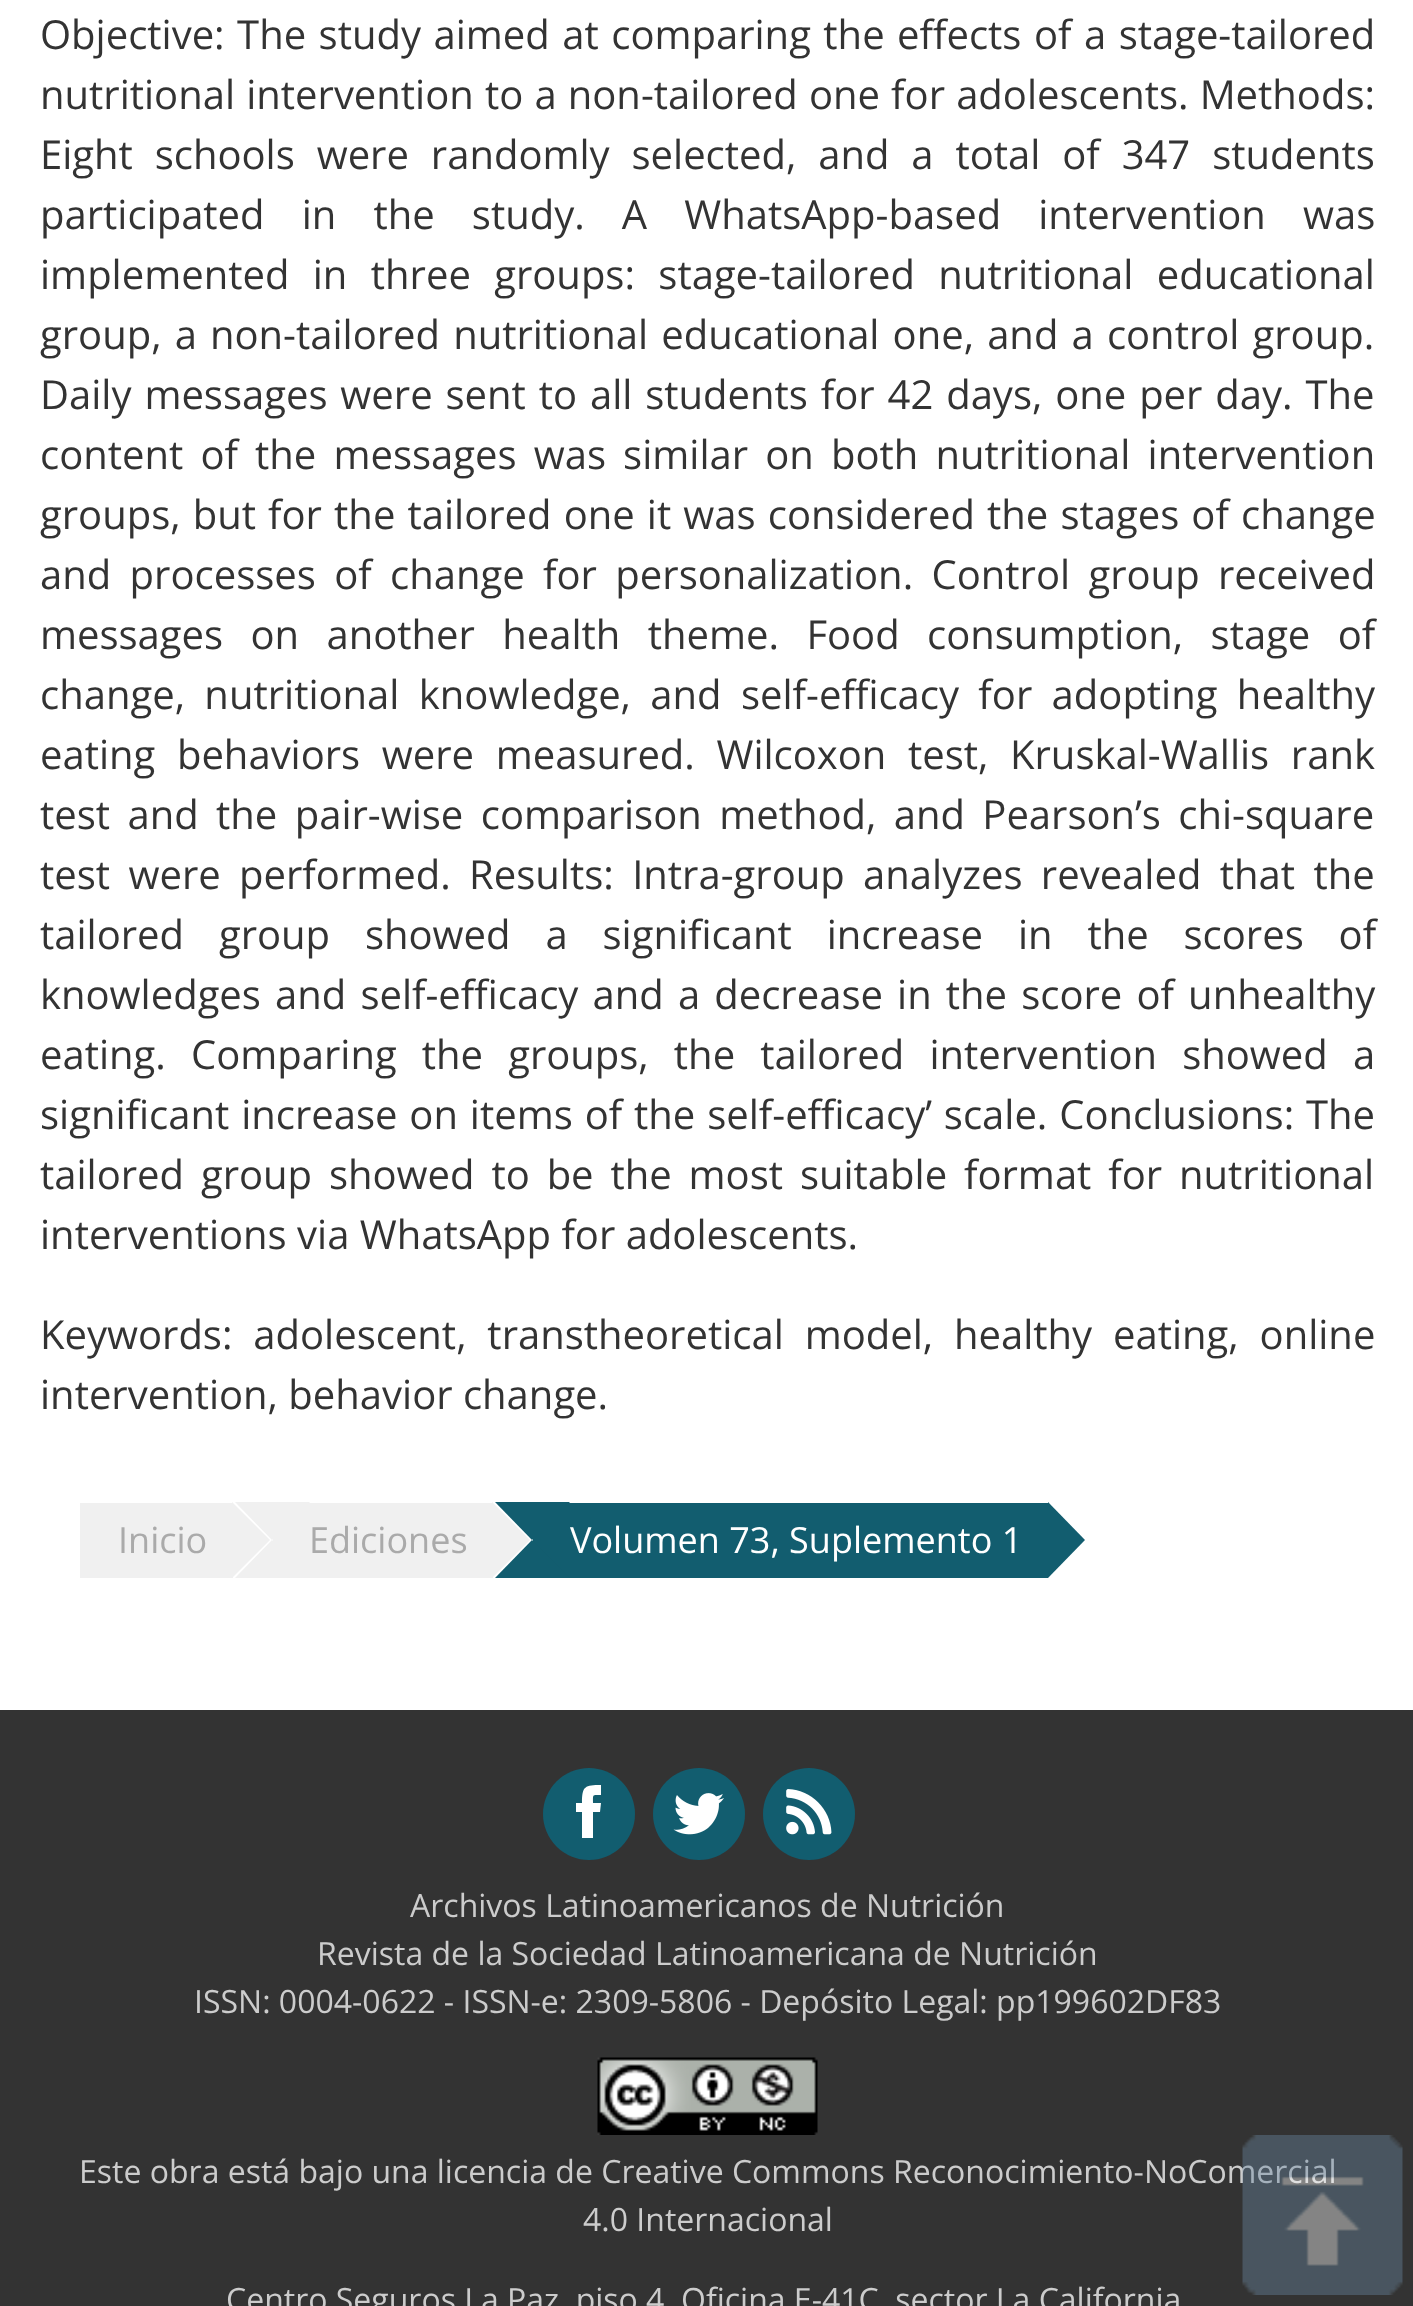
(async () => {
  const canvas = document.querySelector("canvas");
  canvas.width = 1413;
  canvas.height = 2306;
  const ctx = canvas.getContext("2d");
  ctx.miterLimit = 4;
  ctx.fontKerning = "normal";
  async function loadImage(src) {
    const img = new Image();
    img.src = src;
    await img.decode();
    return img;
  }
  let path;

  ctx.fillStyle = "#333333";
  ctx.fillRect(0, 0, 1413, 2306);
  ctx.fillStyle = "#ffffff";
  ctx.fillRect(0, 0, 1413, 1710);
  ctx.fillStyle = "#f0f0f0";
  ctx.fillRect(80, 1503, 153, 75);
  path = new Path2D("M232 1578V1502L270 1540Z");
  ctx.fill(path);
  ctx.fillRect(310, 1503, 183, 75);
  path = new Path2D("M235 1502H310L272 1540Z");
  ctx.fill(path);
  ctx.fillRect(273, 1503, 37, 75);
  path = new Path2D("M310 1578H235L272 1540Z");
  ctx.fill(path);
  path = new Path2D("M492 1578V1502L530 1540Z");
  ctx.fill(path);
  ctx.fillStyle = "#125d6f";
  ctx.fillRect(570, 1503, 478, 75);
  path = new Path2D("M495 1502H570L532 1540Z");
  ctx.fill(path);
  ctx.fillRect(533, 1503, 37, 75);
  path = new Path2D("M570 1578H495L532 1540Z");
  ctx.fill(path);
  path = new Path2D("M1048 1578V1502L1085 1540Z");
  ctx.fill(path);
  ctx.beginPath();
  ctx.arc(589, 1814, 46, 0, Math.PI * 2);
  ctx.fill();
  ctx.fillStyle = "#ffffff";
  path = new Path2D("M593 1803C593 1794 592 1795 601 1795V1785C585 1785 582 1786 582 1803H576V1812H582V1838H593V1812H600L601 1803Z");
  ctx.fill(path);
  ctx.fillStyle = "#125d6f";
  ctx.beginPath();
  ctx.arc(699, 1814, 46, 0, Math.PI * 2);
  ctx.fill();
  ctx.drawImage(await loadImage("img/1.png"), 673, 1793, 51, 42);
  ctx.beginPath();
  ctx.arc(809, 1814, 46, 0, Math.PI * 2);
  ctx.fill();
  ctx.drawImage(await loadImage("img/2.png"), 786, 1789, 46, 46);
  ctx.drawImage(await loadImage("img/3.png"), 597, 2057, 221, 78);
  ctx.wordSpacing = "2.1px";
  ctx.font = "40px Open Sans";
  ctx.fillStyle = "#333333";
  ctx.fillText("Objective: The study aimed at comparing the effects of a stage-tailored", 40, 49);
  ctx.wordSpacing = "0.75px";
  ctx.fillText("nutritional intervention to a non-tailored one for adolescents. Methods:", 40, 109);
  ctx.wordSpacing = "11.5px";
  ctx.fillText("Eight schools were randomly selected, and a total of 347 students", 40, 169);
  ctx.wordSpacing = "26.75px";
  ctx.fillText("participated in the study. A WhatsApp-based intervention was", 40, 229);
  ctx.wordSpacing = "13px";
  ctx.fillText("implemented in three groups: stage-tailored nutritional educational", 40, 289);
  ctx.wordSpacing = "2.75px";
  ctx.fillText("group, a non-tailored nutritional educational one, and a control group.", 40, 349);
  ctx.wordSpacing = "2.5px";
  ctx.fillText("Daily messages were sent to all students for 42 days, one per day. The", 40, 409);
  ctx.wordSpacing = "6.75px";
  ctx.fillText("content of the messages was similar on both nutritional intervention", 40, 469);
  ctx.wordSpacing = "1.75px";
  ctx.fillText("groups, but for the tailored one it was considered the stages of change", 40, 529);
  ctx.wordSpacing = "8px";
  ctx.fillText("and processes of change for personalization. Control group received", 40, 589);
  ctx.wordSpacing = "17px";
  ctx.fillText("messages on another health theme. Food consumption, stage of", 40, 649);
  ctx.wordSpacing = "9px";
  ctx.fillText("change, nutritional knowledge, and self-efficacy for adopting healthy", 40, 709);
  ctx.wordSpacing = "11.25px";
  ctx.fillText("eating behaviors were measured. Wilcoxon test, Kruskal-Wallis rank", 40, 769);
  ctx.wordSpacing = "7px";
  ctx.fillText("test and the pair-wise comparison method, and Pearson’s chi-square", 40, 829);
  ctx.wordSpacing = "8px";
  ctx.fillText("test were performed. Results: Intra-group analyzes revealed that the", 40, 889);
  ctx.wordSpacing = "24.5px";
  ctx.fillText("tailored group showed a significant increase in the scores of", 40, 949);
  ctx.wordSpacing = "3.75px";
  ctx.fillText("knowledges and self-efficacy and a decrease in the score of unhealthy", 40, 1009);
  ctx.wordSpacing = "14.75px";
  ctx.fillText("eating. Comparing the groups, the tailored intervention showed a", 40, 1069);
  ctx.wordSpacing = "1.5px";
  ctx.fillText("significant increase on items of the self-efficacy’ scale. Conclusions: The", 40, 1129);
  ctx.wordSpacing = "6.5px";
  ctx.fillText("tailored group showed to be the most suitable format for nutritional", 40, 1189);
  ctx.wordSpacing = "0px";
  ctx.fillText("interventions via WhatsApp for adolescents.", 40, 1249);
  ctx.wordSpacing = "10.5px";
  ctx.fillText("Keywords: adolescent, transtheoretical model, healthy eating, online", 40, 1349);
  ctx.wordSpacing = "0px";
  ctx.fillText("intervention, behavior change.", 40, 1409);
  ctx.font = "36px Open Sans";
  ctx.fillStyle = "#aaaaaa";
  ctx.fillText("Inicio", 118, 1553);
  ctx.fillText("Ediciones", 309, 1553);
  ctx.fillStyle = "#ffffff";
  ctx.fillText("Volumen 73, Suplemento 1", 570, 1553);
  ctx.font = "32px Open Sans";
  ctx.fillStyle = "#cccccc";
  for (const [text, x, y] of [
    ["Archivos Latinoamericanos de Nutrición", 410, 1917],
    ["Revista de la Sociedad Latinoamericana de Nutrición", 317, 1965],
    ["ISSN: 0004-0622 - ISSN-e: 2309-5806 - Depósito Legal: pp199602DF83", 194, 2013],
    ["Este obra está bajo una licencia de Creative Commons Reconocimiento-NoComercial", 79, 2183],
    ["4.0 Internacional", 583, 2231],
    ["Centro Seguros La Paz, piso 4, Oficina E-41C, sector La California", 226, 2311],
  ]) {
    ctx.fillText(text, x, y);
  }
  ctx.drawImage(await loadImage("img/4.png"), 1242, 2135, 161, 160);
})();
